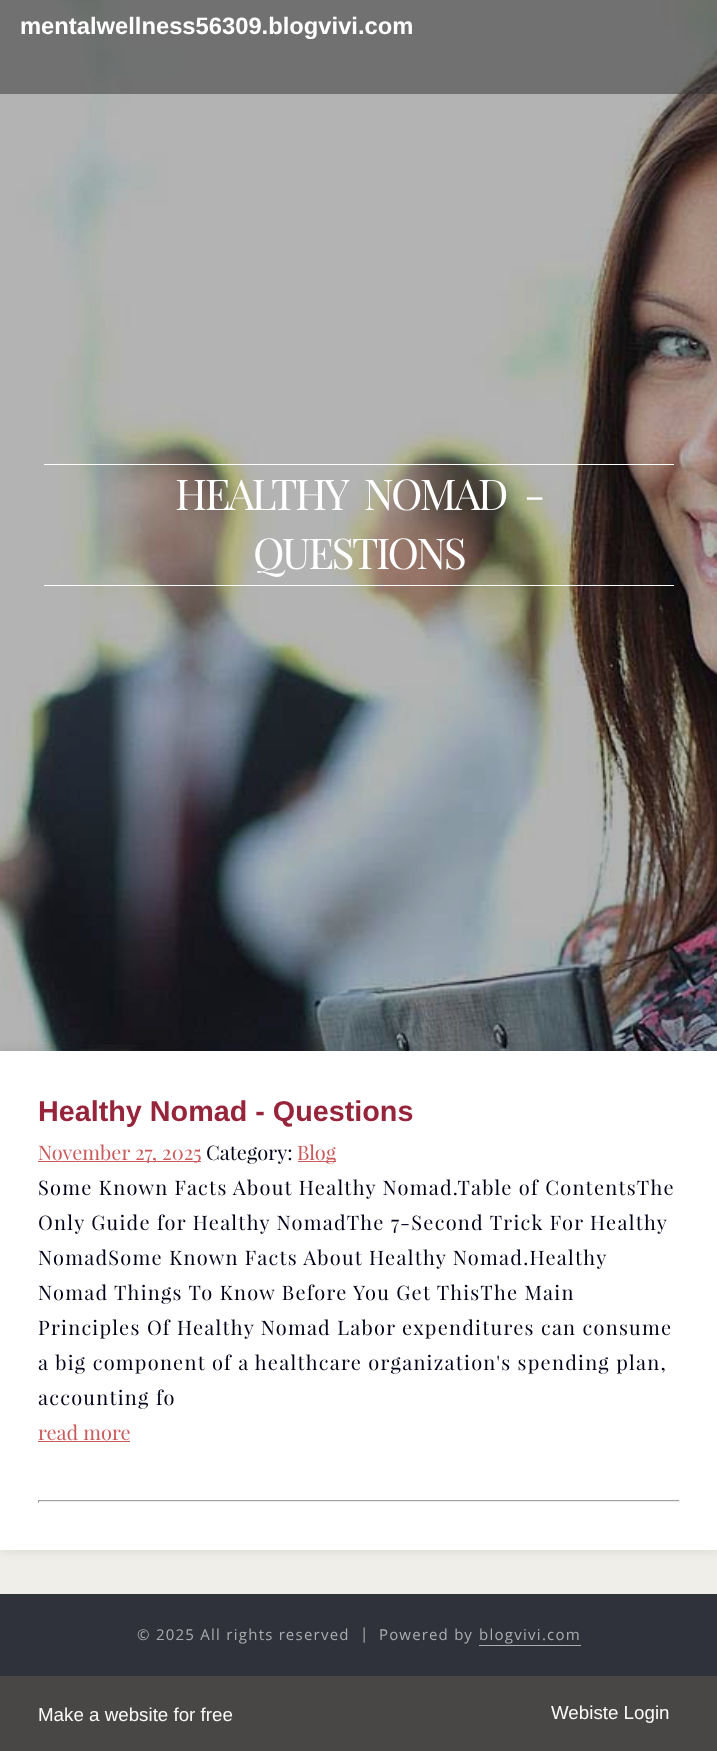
(async () => {
  const canvas = document.querySelector("canvas");
  canvas.width = 717;
  canvas.height = 1751;
  const ctx = canvas.getContext("2d");
  ctx.miterLimit = 4;
  ctx.fontKerning = "normal";
  async function loadImage(src) {
    const img = new Image();
    img.src = src;
    await img.decode();
    return img;
  }

  ctx.fillStyle = "#efeee9";
  ctx.fillRect(0, 0, 717, 1751);
  ctx.drawImage(await loadImage("img/1.png"), 0, 0, 717, 1051);
  for (const [x, y, w, h, color] of [
    [0, 0, 717, 94, "rgba(47, 47, 47, 0.5)"],
    [44, 464, 630, 1, "#ffffff"],
    [44, 585, 630, 1, "#ffffff"],
  ]) {
    ctx.fillStyle = color;
    ctx.fillRect(x, y, w, h);
  }
  ctx.fillStyle = "rgba(0, 0, 0, 0.1)";
  ctx.filter = "blur(6px)";
  ctx.beginPath();
  ctx.rect(0, 1051, 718, 499);
  ctx.fill();
  ctx.filter = "none";
  for (const [x, y, w, h, color] of [
    [0, 1051, 717, 499, "#ffffff"],
    [38, 1161, 163, 1, "#ca5a5b"],
    [298, 1161, 38, 1, "#ca5a5b"],
    [38, 1441, 92, 1, "#ca5a5b"],
    [38, 1500, 642, 1, "#9f9f9f"],
    [679, 1500, 1, 3, "#eeeeee"],
    [38, 1501, 642, 1, "#eeeeee"],
    [38, 1500, 1, 3, "#9f9f9f"],
    [0, 1594, 717, 82, "#30323b"],
    [479, 1645, 102, 1, "#acadb1"],
    [0, 1676, 717, 75, "#484746"],
  ]) {
    ctx.fillStyle = color;
    ctx.fillRect(x, y, w, h);
  }
  ctx.font = "bold 23.75px Liberation Sans";
  ctx.fillStyle = "#ffffff";
  ctx.fillText("mentalwellness56309.blogvivi.com", 20, 34);
  ctx.letterSpacing = "-2.5px";
  ctx.wordSpacing = "10px";
  ctx.font = "42.5px Playfair Display";
  ctx.fillText("HEALTHY NOMAD -", 175, 510);
  ctx.wordSpacing = "0px";
  ctx.fillText("QUESTIONS", 253, 569);
  ctx.letterSpacing = "0px";
  ctx.font = "bold 28.75px Liberation Sans";
  ctx.fillStyle = "#96243a";
  ctx.fillText("Healthy Nomad - Questions", 38, 1121);
  ctx.font = "20px Playfair Display";
  ctx.fillStyle = "#ca5a5b";
  ctx.fillText("November 27, 2025", 38, 1160);
  ctx.fillStyle = "#010118";
  ctx.fillText("Category:", 206, 1160);
  ctx.fillStyle = "#ca5a5b";
  ctx.fillText("Blog", 297, 1160);
  ctx.letterSpacing = "1.25px";
  ctx.fillStyle = "#010118";
  for (const [text, x, y] of [
    ["Some Known Facts About Healthy Nomad.Table of ContentsThe", 38, 1195],
    ["Only Guide for Healthy NomadThe 7-Second Trick For Healthy", 38, 1230],
    ["NomadSome Known Facts About Healthy Nomad.Healthy", 38, 1265],
    ["Nomad Things To Know Before You Get ThisThe Main", 38, 1300],
    ["Principles Of Healthy Nomad Labor expenditures can consume", 38, 1335],
    ["a big component of a healthcare organization's spending plan,", 38, 1370],
    ["accounting fo", 38, 1405],
  ]) {
    ctx.fillText(text, x, y);
  }
  ctx.letterSpacing = "0px";
  ctx.fillStyle = "#ca5a5b";
  ctx.fillText("read more", 38, 1440);
  ctx.letterSpacing = "1.25px";
  ctx.font = "15px Open Sans";
  ctx.fillStyle = "#acadb1";
  for (const [text, x, y] of [
    ["© 2025 All rights reserved", 137, 1640],
    ["|", 360, 1639],
    ["Powered by", 379, 1640],
    ["blogvivi.com", 479, 1640],
  ]) {
    ctx.fillText(text, x, y);
  }
  ctx.letterSpacing = "0px";
  ctx.font = "18.75px Liberation Sans";
  ctx.fillStyle = "#fafaf8";
  ctx.fillText("Make a website for free", 38, 1721);
  ctx.fillText("Webiste Login", 551, 1719);
})();
